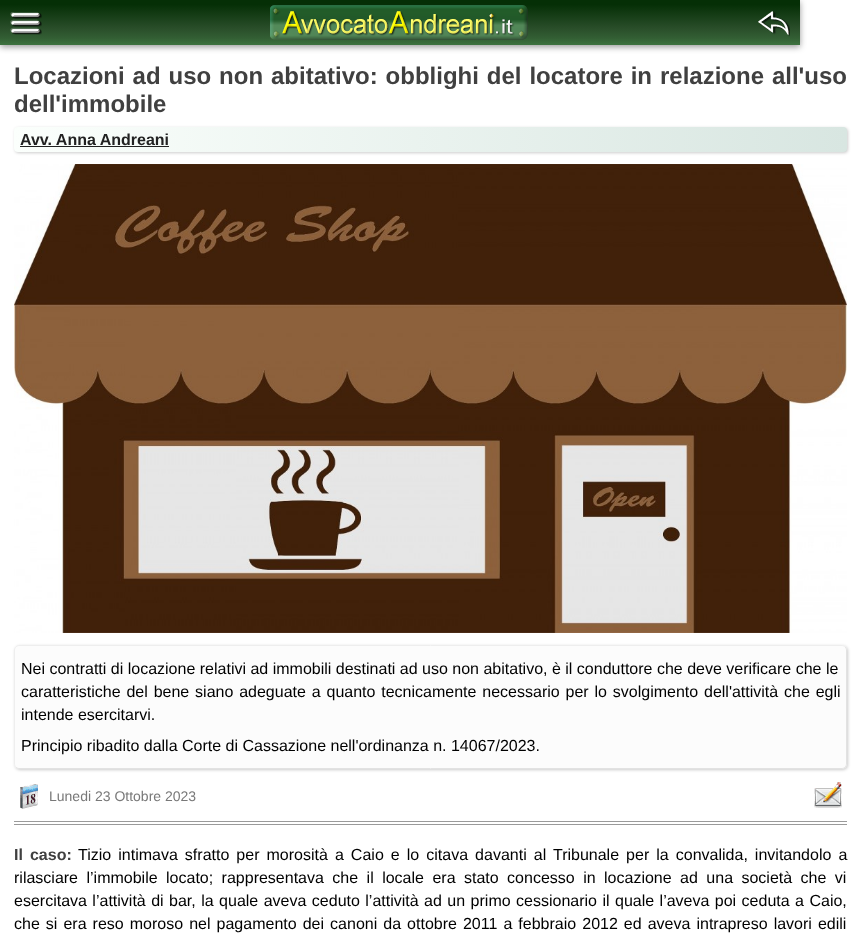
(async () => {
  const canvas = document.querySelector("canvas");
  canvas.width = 861;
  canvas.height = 942;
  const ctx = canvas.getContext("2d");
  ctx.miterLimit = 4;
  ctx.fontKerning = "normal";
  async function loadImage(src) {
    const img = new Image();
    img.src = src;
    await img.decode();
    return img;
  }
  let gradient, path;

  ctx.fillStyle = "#ffffff";
  ctx.fillRect(0, 0, 861, 942);
  ctx.fillStyle = "rgba(0, 0, 0, 0.4)";
  ctx.filter = "blur(3px)";
  ctx.beginPath();
  ctx.rect(0, 2, 800, 45);
  ctx.fill();
  ctx.filter = "none";
  gradient = ctx.createLinearGradient(400, 0, 400, 45);
  gradient.addColorStop(0, "#031d04");
  gradient.addColorStop(0, "#052f06");
  gradient.addColorStop(0.1, "#052f06");
  gradient.addColorStop(0.62, "#294d29");
  gradient.addColorStop(0.85, "#335f34");
  gradient.addColorStop(1, "#3d733f");
  ctx.fillStyle = gradient;
  ctx.fillRect(0, 0, 800, 45);
  ctx.drawImage(await loadImage("img/1.png"), 10, 12, 32, 23);
  ctx.drawImage(await loadImage("img/2.png"), 270, 5, 258, 35);
  ctx.drawImage(await loadImage("img/3.png"), 758, 11, 32, 26);
  ctx.fillStyle = "rgba(0, 0, 0, 0.2)";
  ctx.filter = "blur(1.5px)";
  ctx.beginPath();
  ctx.roundRect(15, 128, 833, 25, 4);
  ctx.fill();
  ctx.filter = "none";
  gradient = ctx.createLinearGradient(14, 140, 847, 139);
  gradient.addColorStop(0, "#fbfffc");
  gradient.addColorStop(1, "#d8e6e1");
  ctx.fillStyle = gradient;
  ctx.beginPath();
  ctx.roundRect(14, 127, 833, 25, 4);
  ctx.fill();
  ctx.fillStyle = "#222222";
  ctx.fillRect(20, 146, 149, 1);
  ctx.drawImage(await loadImage("img/4.png"), 14, 164, 833, 469);
  ctx.fillStyle = "#9a9a9a";
  ctx.fillRect(14, 821, 833, 1);
  ctx.fillStyle = "rgba(0, 0, 0, 0.2)";
  ctx.filter = "blur(1.5px)";
  ctx.beginPath();
  ctx.roundRect(15, 646, 833, 124, 5);
  ctx.fill();
  ctx.filter = "none";
  ctx.fillStyle = "#fcfcfc";
  ctx.beginPath();
  ctx.roundRect(14, 645, 833, 124, 5);
  ctx.fill();
  path = new Path2D("M845 647C846 647.5 846.5 649 846.5 650V764C846.5 765 846 766.5 845 767C844.5 768 843 768.5 842 768.5H19C18 768.5 16.5 768 16 767");
  ctx.strokeStyle = "#e2e2e2";
  ctx.stroke(path);
  path = new Path2D("M16 767C15 766.5 14.5 765 14.5 764V650C14.5 649 15 647.5 16 647C16.5 646 18 645.5 19 645.5H842C843 645.5 844.5 646 845 647");
  ctx.strokeStyle = "#eeeeee";
  ctx.stroke(path);
  ctx.drawImage(await loadImage("img/5.png"), 20, 784, 18, 25);
  ctx.drawImage(await loadImage("img/6.png"), 814, 782, 28, 26);
  ctx.fillStyle = "#9a9a9a";
  ctx.fillRect(14, 824, 833, 1);
  ctx.wordSpacing = "1.25px";
  ctx.font = "bold 24px Liberation Sans";
  ctx.fillStyle = "#404040";
  ctx.fillText("Locazioni ad uso non abitativo: obblighi del locatore in relazione all'uso", 14, 84);
  ctx.wordSpacing = "0px";
  ctx.fillText("dell'immobile", 14, 112);
  ctx.font = "bold 16px Liberation Sans";
  ctx.fillStyle = "#222222";
  ctx.fillText("Avv. Anna Andreani", 20, 145);
  ctx.font = "16px Liberation Sans";
  ctx.fillStyle = "#000000";
  ctx.fillText("Nei contratti di locazione relativi ad immobili destinati ad uso non abitativo, è il conduttore che deve verificare che le", 21, 674);
  ctx.wordSpacing = "1.4px";
  ctx.fillText("caratteristiche del bene siano adeguate a quanto tecnicamente necessario per lo svolgimento dell'attività che egli", 21, 697);
  ctx.wordSpacing = "0px";
  ctx.fillText("intende esercitarvi.", 21, 720);
  ctx.fillText("Principio ribadito dalla Corte di Cassazione nell'ordinanza n. 14067/2023.", 21, 751);
  ctx.font = "14px Liberation Sans";
  ctx.fillStyle = "#787878";
  ctx.fillText("Lunedi 23 Ottobre 2023", 49, 801);
  ctx.wordSpacing = "2.6px";
  ctx.font = "bold 16px Liberation Sans";
  ctx.fillStyle = "#404040";
  ctx.fillText("Il caso:", 14, 860);
  ctx.font = "16px Liberation Sans";
  ctx.fillStyle = "#000000";
  ctx.fillText("Tizio intimava sfratto per morosità a Caio e lo citava davanti al Tribunale per la convalida, invitandolo a", 78, 860);
  ctx.wordSpacing = "4px";
  ctx.fillText("rilasciare l’immobile locato; rappresentava che il locale era stato concesso in locazione ad una società che vi", 14, 883);
  ctx.wordSpacing = "1px";
  ctx.fillText("esercitava l’attività di bar, la quale aveva ceduto l’attività ad un primo cessionario il quale l’aveva poi ceduta a Caio,", 14, 906);
  ctx.wordSpacing = "1.6px";
  ctx.fillText("che si era reso moroso nel pagamento dei canoni da ottobre 2011 a febbraio 2012 ed aveva intrapreso lavori edili", 14, 929);
})();
